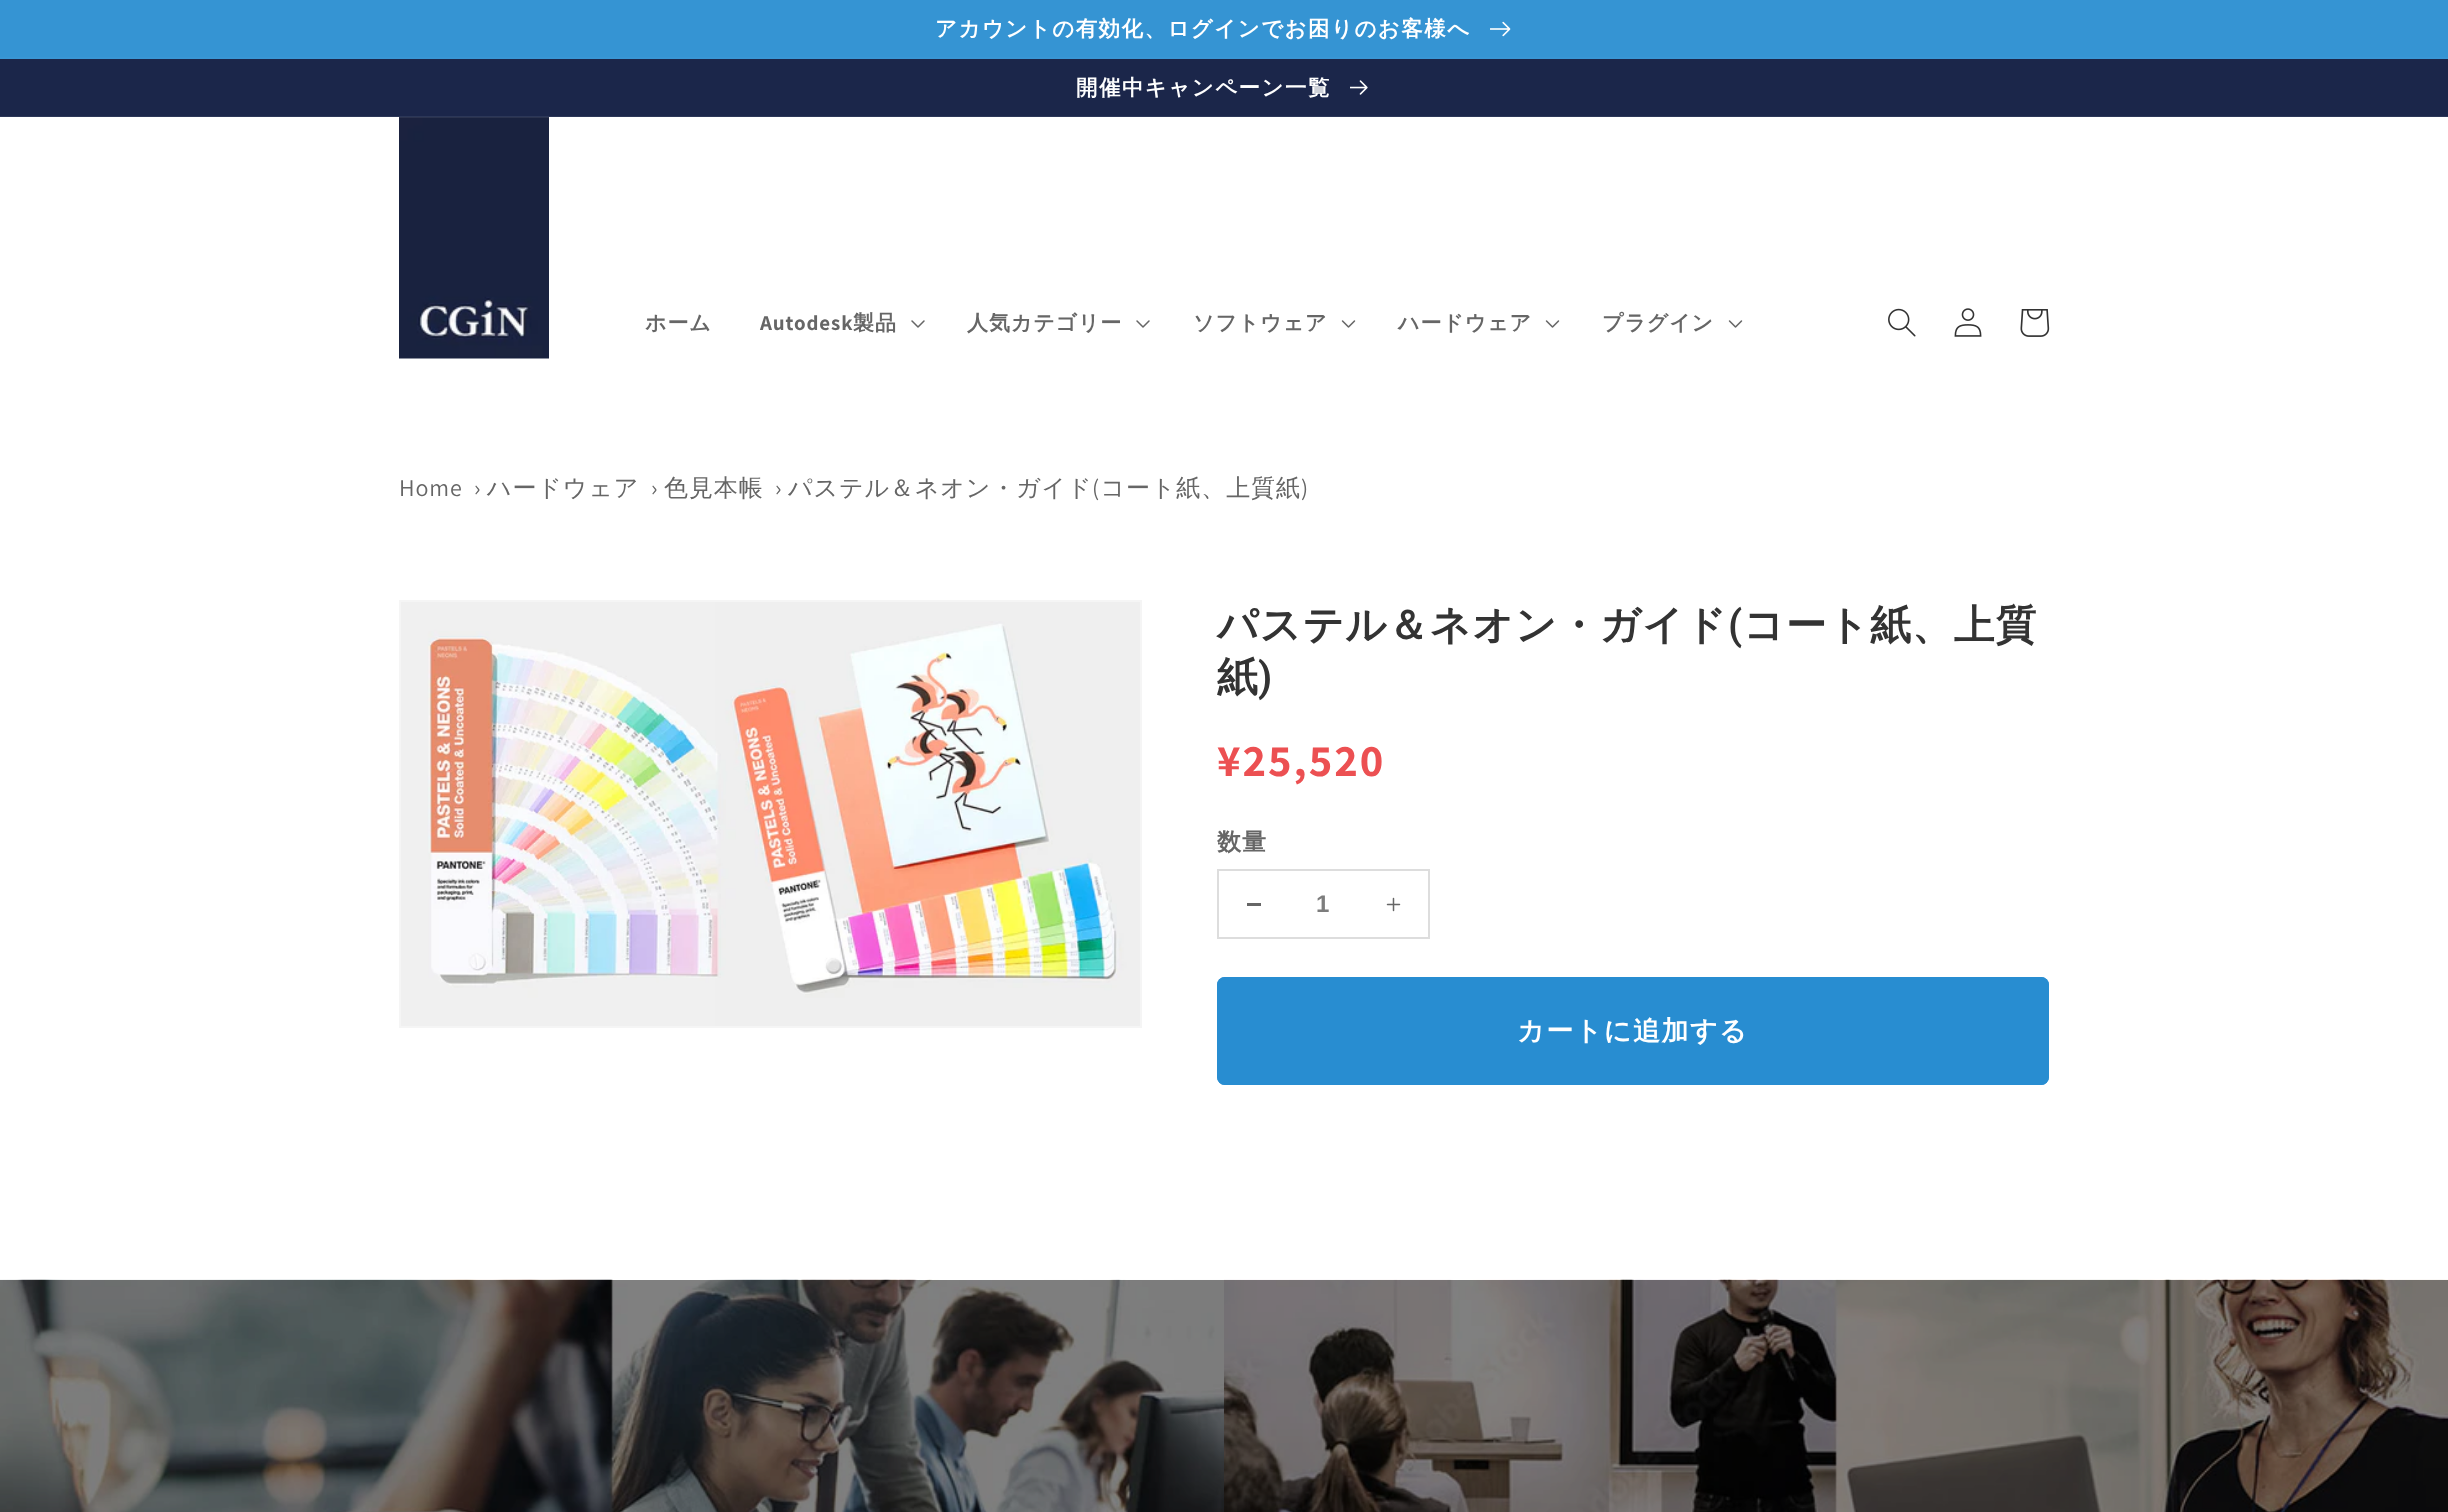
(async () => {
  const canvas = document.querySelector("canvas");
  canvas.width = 2448;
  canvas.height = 1512;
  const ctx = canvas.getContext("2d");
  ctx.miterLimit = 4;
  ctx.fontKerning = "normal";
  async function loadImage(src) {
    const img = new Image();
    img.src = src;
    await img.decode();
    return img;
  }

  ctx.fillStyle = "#ffffff";
  ctx.fillRect(0, 0, 2448, 1512);
  ctx.fillStyle = "#3996d5";
  ctx.fillRect(0, 57, 2448, 2);
  ctx.fillStyle = "#3594d3";
  ctx.fillRect(0, 0, 2448, 57);
  ctx.drawImage(await loadImage("img/1.png"), 1490, 21, 21, 16);
  ctx.fillStyle = "#1b264a";
  ctx.fillRect(0, 59, 2448, 58);
  ctx.drawImage(await loadImage("img/3.png"), 399, 117, 150, 242);
  ctx.fillStyle = "rgba(255, 255, 255, 0.08)";
  ctx.fillRect(0, 116, 2448, 2);
  ctx.drawImage(await loadImage("img/2.png"), 1350, 80, 18, 15);
  ctx.drawImage(await loadImage("img/4.png"), 911, 320, 14, 8);
  ctx.drawImage(await loadImage("img/4.png"), 1136, 320, 14, 8);
  ctx.drawImage(await loadImage("img/5.png"), 1341, 320, 15, 8);
  ctx.drawImage(await loadImage("img/5.png"), 1545, 320, 15, 8);
  ctx.drawImage(await loadImage("img/5.png"), 1728, 320, 15, 8);
  ctx.drawImage(await loadImage("img/6.png"), 1888, 308, 28, 29);
  ctx.drawImage(await loadImage("img/7.png"), 1954, 308, 28, 29);
  ctx.drawImage(await loadImage("img/8.png"), 2020, 309, 30, 28);
  ctx.strokeStyle = "#f5f5f5";
  ctx.lineWidth = 2;
  ctx.strokeRect(400, 601, 741, 426);
  ctx.drawImage(await loadImage("img/9.png"), 401, 602, 739, 424);
  ctx.strokeStyle = "#dddddd";
  ctx.strokeRect(1218, 870, 211, 68);
  ctx.fillStyle = "#666666";
  ctx.fillRect(1247, 903, 14, 3);
  ctx.drawImage(await loadImage("img/10.png"), 1386, 897, 15, 15);
  ctx.fillStyle = "#288dd1";
  ctx.beginPath();
  ctx.roundRect(1217, 977, 832, 108, 8);
  ctx.fill();
  ctx.beginPath();
  ctx.roundRect(1218, 978, 830, 106, 7);
  ctx.strokeStyle = "#288dd1";
  ctx.stroke();
  ctx.drawImage(await loadImage("img/11.png"), 0, 1279, 1224, 233);
  ctx.drawImage(await loadImage("img/12.png"), 1224, 1279, 1224, 233);
  ctx.letterSpacing = "1.5px";
  ctx.font = "bold 21.45px WenQuanYi Zen Hei";
  ctx.fillStyle = "#ffffff";
  ctx.fillText("アカウントの有効化、ログインでお困りのお客様へ", 935, 36);
  ctx.fillText("開催中キャンペーン一覧", 1076, 95);
  ctx.letterSpacing = "0.9px";
  ctx.font = "bold 21px WenQuanYi Zen Hei";
  ctx.fillStyle = "#666666";
  ctx.fillText("ホーム", 645, 330);
  ctx.font = "bold 21px Assistant";
  ctx.fillText("Autodesk", 760, 330);
  ctx.font = "bold 21px WenQuanYi Zen Hei";
  for (const [text, x, y] of [
    ["製品", 853, 330],
    ["人気カテゴリー", 967, 330],
    ["ソフトウェア", 1193, 330],
    ["ハードウェア", 1398, 330],
    ["プラグイン", 1602, 330],
  ]) {
    ctx.fillText(text, x, y);
  }
  ctx.font = "500 24px WenQuanYi Zen Hei";
  for (const [text, x, y] of [
    ["ハードウェア", 487, 496],
    ["色見本帳", 664, 496],
    ["パステル＆ネオン・ガイド コート紙、上質紙", 788, 496],
  ]) {
    ctx.fillText(text, x, y);
  }
  ctx.font = "24px Assistant";
  for (const [text, x, y] of [
    ["Home", 399, 496],
    ["›", 474, 496],
    ["›", 651, 496],
    ["›", 775, 496],
    ["(", 1092, 496],
    [")", 1301, 496],
  ]) {
    ctx.fillText(text, x, y);
  }
  ctx.letterSpacing = "1px";
  ctx.font = "bold 40.75px WenQuanYi Zen Hei";
  ctx.fillStyle = "#333333";
  ctx.fillText("パステル＆ネオン・ガイド", 1217, 639);
  ctx.font = "600 40.75px Roboto";
  ctx.fillText("(", 1728, 639);
  ctx.font = "bold 40.75px WenQuanYi Zen Hei";
  ctx.fillText("コート紙、上質", 1743, 639);
  ctx.fillText("紙", 1217, 691);
  ctx.font = "600 40.75px Roboto";
  ctx.fillText(")", 1258, 691);
  ctx.letterSpacing = "2px";
  ctx.font = "bold 45px Assistant";
  ctx.fillStyle = "#ec5052";
  ctx.fillText("¥25,520", 1217, 776);
  ctx.letterSpacing = "1px";
  ctx.font = "bold 24px WenQuanYi Zen Hei";
  ctx.fillStyle = "#666666";
  ctx.fillText("数量", 1217, 850);
  ctx.letterSpacing = "0px";
  ctx.font = "bold 24px Liberation Sans";
  ctx.fillStyle = "#7d7d7d";
  ctx.fillText("1", 1316, 912);
  ctx.letterSpacing = "1.5px";
  ctx.font = "bold 27px WenQuanYi Zen Hei";
  ctx.fillStyle = "#ffffff";
  ctx.fillText("カートに追加する", 1517, 1040);
})();
